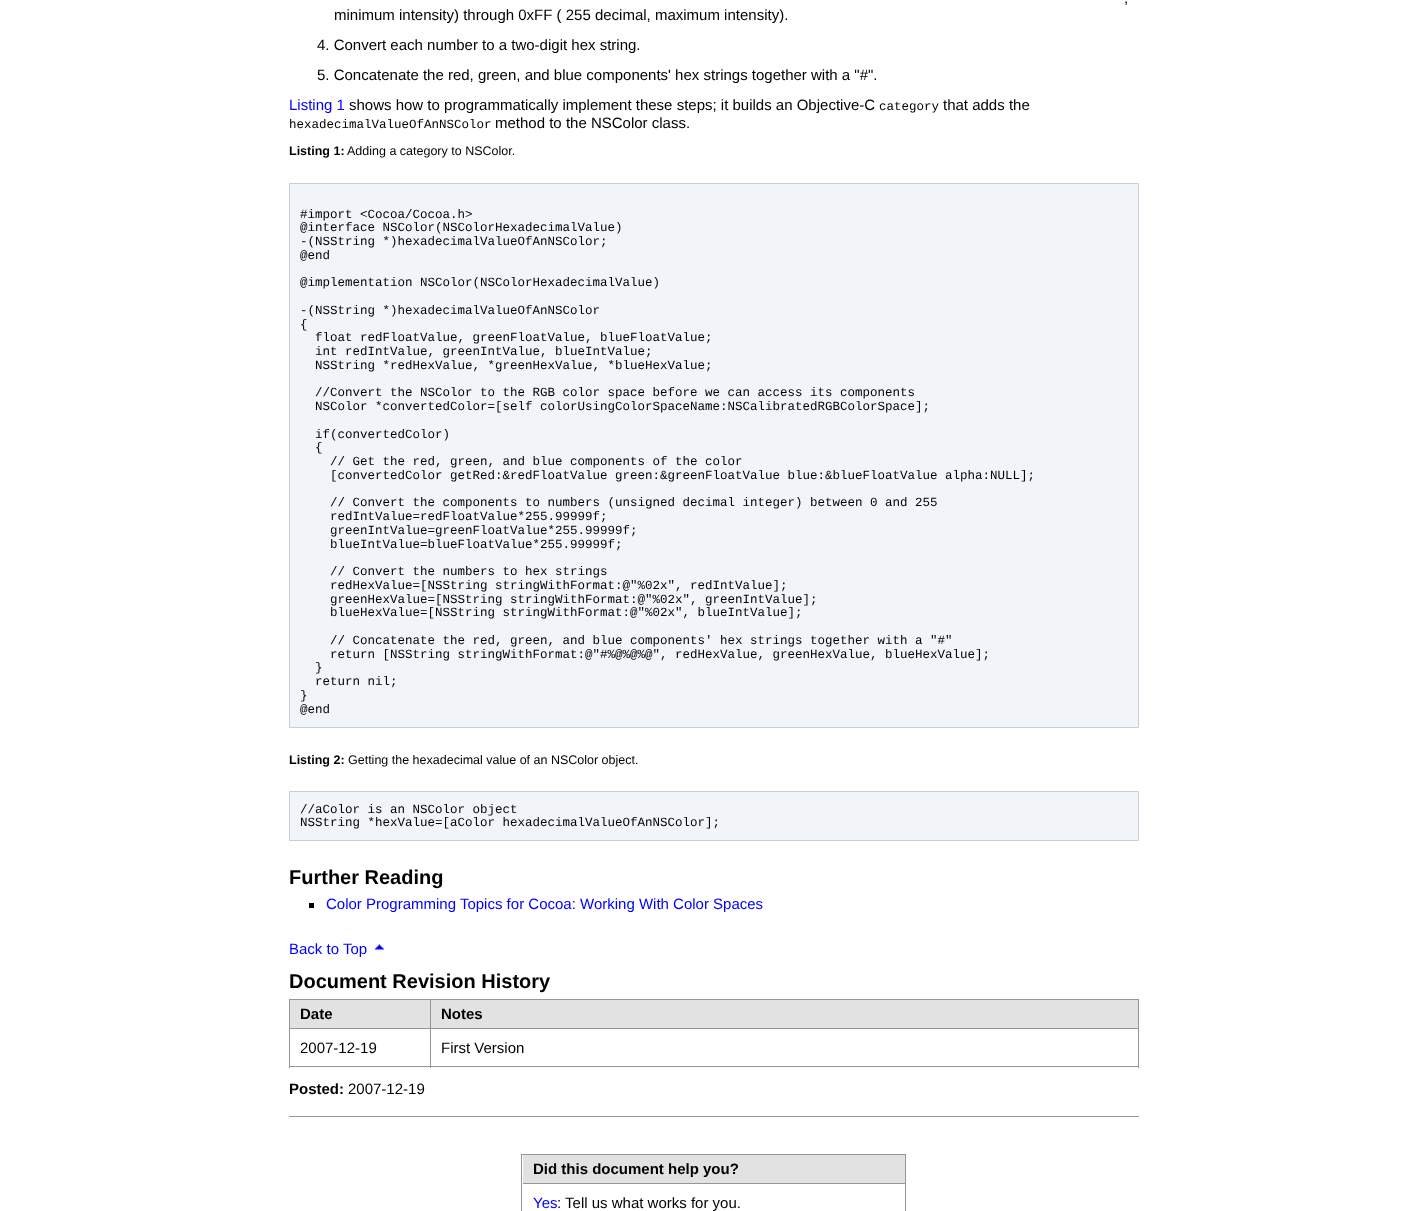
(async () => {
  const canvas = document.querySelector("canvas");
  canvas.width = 1427;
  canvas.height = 1211;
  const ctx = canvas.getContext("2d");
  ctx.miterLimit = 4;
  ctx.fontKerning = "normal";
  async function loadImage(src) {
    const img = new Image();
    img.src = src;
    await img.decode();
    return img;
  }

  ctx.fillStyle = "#ffffff";
  ctx.fillRect(0, 0, 1427, 1211);
  ctx.fillStyle = "#f1f5f9";
  ctx.beginPath();
  ctx.rect(289.5, 183.5, 849, 544);
  ctx.fill();
  ctx.strokeStyle = "#c7cfd5";
  ctx.stroke();
  ctx.beginPath();
  ctx.rect(289.5, 791.5, 849, 49);
  ctx.fill();
  ctx.stroke();
  ctx.fillStyle = "#000000";
  ctx.fillRect(309, 903, 5, 5);
  ctx.drawImage(await loadImage("img/1.png"), 374, 944, 10, 6);
  for (const [x, y, w, h, color] of [
    [289, 999, 850, 1, "#919699"],
    [289, 999, 1, 69, "#919699"],
    [290, 1000, 140, 28, "#e2e2e2"],
    [430, 1000, 1, 68, "#919699"],
    [290, 1028, 141, 1, "#919699"],
    [431, 1000, 707, 28, "#e2e2e2"],
    [1138, 1000, 1, 68, "#919699"],
    [431, 1028, 708, 1, "#919699"],
    [290, 1066, 849, 1, "#919699"],
    [289, 1116, 850, 1, "#919699"],
    [521, 1154, 385, 1, "#919699"],
    [521, 1154, 1, 57, "#919699"],
    [523, 1155, 382, 28, "#e2e2e2"],
    [905, 1155, 1, 56, "#919699"],
    [523, 1183, 383, 1, "#919699"],
  ]) {
    ctx.fillStyle = color;
    ctx.fillRect(x, y, w, h);
  }
  ctx.font = "15px Liberation Sans";
  ctx.fillStyle = "#000000";
  for (const [text, x, y] of [
    [",", 1124, 3],
    ["minimum intensity) through 0xFF ( 255 decimal, maximum intensity).", 334, 20],
    ["4. Convert each number to a two-digit hex string.", 317, 50],
    ["5. Concatenate the red, green, and blue components' hex strings together with a \"#\".", 317, 80],
  ]) {
    ctx.fillText(text, x, y);
  }
  ctx.fillStyle = "#0000ff";
  ctx.fillText("Listing 1", 289, 110);
  ctx.fillStyle = "#000000";
  ctx.fillText("shows how to programmatically implement these steps; it builds an Objective-C", 349, 110);
  ctx.font = "12.5px Liberation Mono";
  ctx.fillText("category", 879, 110);
  ctx.font = "15px Liberation Sans";
  ctx.fillText("that adds the", 943, 110);
  ctx.font = "12.5px Liberation Mono";
  ctx.fillText("hexadecimalValueOfAnNSColor", 289, 128);
  ctx.font = "15px Liberation Sans";
  ctx.fillText("method to the NSColor class.", 495, 128);
  ctx.font = "bold 12.5px Liberation Sans";
  ctx.fillText("Listing 1:", 289, 155);
  ctx.font = "12.5px Liberation Sans";
  ctx.fillText("Adding a category to NSColor.", 347, 155);
  ctx.font = "12.5px Liberation Mono";
  for (const [text, x, y] of [
    ["#import <Cocoa/Cocoa.h>", 300, 218],
    ["@interface NSColor(NSColorHexadecimalValue)", 300, 231],
    ["-(NSString *)hexadecimalValueOfAnNSColor;", 300, 245],
    ["@end", 300, 259],
    ["@implementation NSColor(NSColorHexadecimalValue)", 300, 286],
    ["-(NSString *)hexadecimalValueOfAnNSColor", 300, 314],
    ["{", 300, 328],
    ["float redFloatValue, greenFloatValue, blueFloatValue;", 315, 341],
    ["int redIntValue, greenIntValue, blueIntValue;", 315, 355],
    ["NSString *redHexValue, *greenHexValue, *blueHexValue;", 315, 369],
    ["//Convert the NSColor to the RGB color space before we can access its components", 315, 396],
    ["NSColor *convertedColor=[self colorUsingColorSpaceName:NSCalibratedRGBColorSpace];", 315, 410],
    ["if(convertedColor)", 315, 438],
    ["{", 315, 451],
    ["// Get the red, green, and blue components of the color", 330, 465],
    ["[convertedColor getRed:&redFloatValue green:&greenFloatValue blue:&blueFloatValue alpha:NULL];", 330, 479],
    ["// Convert the components to numbers (unsigned decimal integer) between 0 and 255", 330, 506],
    ["redIntValue=redFloatValue*255.99999f;", 330, 520],
    ["greenIntValue=greenFloatValue*255.99999f;", 330, 534],
    ["blueIntValue=blueFloatValue*255.99999f;", 330, 548],
    ["// Convert the numbers to hex strings", 330, 575],
    ["redHexValue=[NSString stringWithFormat:@\"%02x\", redIntValue];", 330, 589],
    ["greenHexValue=[NSString stringWithFormat:@\"%02x\", greenIntValue];", 330, 603],
    ["blueHexValue=[NSString stringWithFormat:@\"%02x\", blueIntValue];", 330, 616],
    ["// Concatenate the red, green, and blue components' hex strings together with a \"#\"", 330, 644],
    ["return [NSString stringWithFormat:@\"#%@%@%@\", redHexValue, greenHexValue, blueHexValue];", 330, 658],
    ["}", 315, 671],
    ["return nil;", 315, 685],
    ["}", 300, 699],
    ["@end", 300, 713],
  ]) {
    ctx.fillText(text, x, y);
  }
  ctx.font = "bold 12.5px Liberation Sans";
  ctx.fillText("Listing 2:", 289, 764);
  ctx.font = "12.5px Liberation Sans";
  ctx.fillText("Getting the hexadecimal value of an NSColor object.", 348, 764);
  ctx.font = "12.5px Liberation Mono";
  ctx.fillText("//aColor is an NSColor object", 300, 813);
  ctx.fillText("NSString *hexValue=[aColor hexadecimalValueOfAnNSColor];", 300, 826);
  ctx.font = "bold 20px Liberation Sans";
  ctx.fillText("Further Reading", 289, 884);
  ctx.font = "15px Liberation Sans";
  ctx.fillStyle = "#0000ff";
  ctx.fillText("Color Programming Topics for Cocoa: Working With Color Spaces", 326, 909);
  ctx.fillText("Back to Top", 289, 954);
  ctx.font = "bold 20px Liberation Sans";
  ctx.fillStyle = "#000000";
  ctx.fillText("Document Revision History", 289, 988);
  ctx.font = "bold 15px Liberation Sans";
  ctx.fillText("Date", 300, 1019);
  ctx.fillText("Notes", 441, 1019);
  ctx.font = "15px Liberation Sans";
  ctx.fillText("2007-12-19", 300, 1053);
  ctx.fillText("First Version", 441, 1053);
  ctx.font = "bold 15px Liberation Sans";
  ctx.fillText("Posted:", 289, 1094);
  ctx.font = "15px Liberation Sans";
  ctx.fillText("2007-12-19", 348, 1094);
  ctx.font = "bold 15px Liberation Sans";
  ctx.fillText("Did this document help you?", 533, 1174);
  ctx.font = "15px Liberation Sans";
  ctx.fillStyle = "#0000ff";
  ctx.fillText("Yes", 533, 1208);
  ctx.fillStyle = "#000000";
  ctx.fillText(": Tell us what works for you.", 557, 1208);
})();
